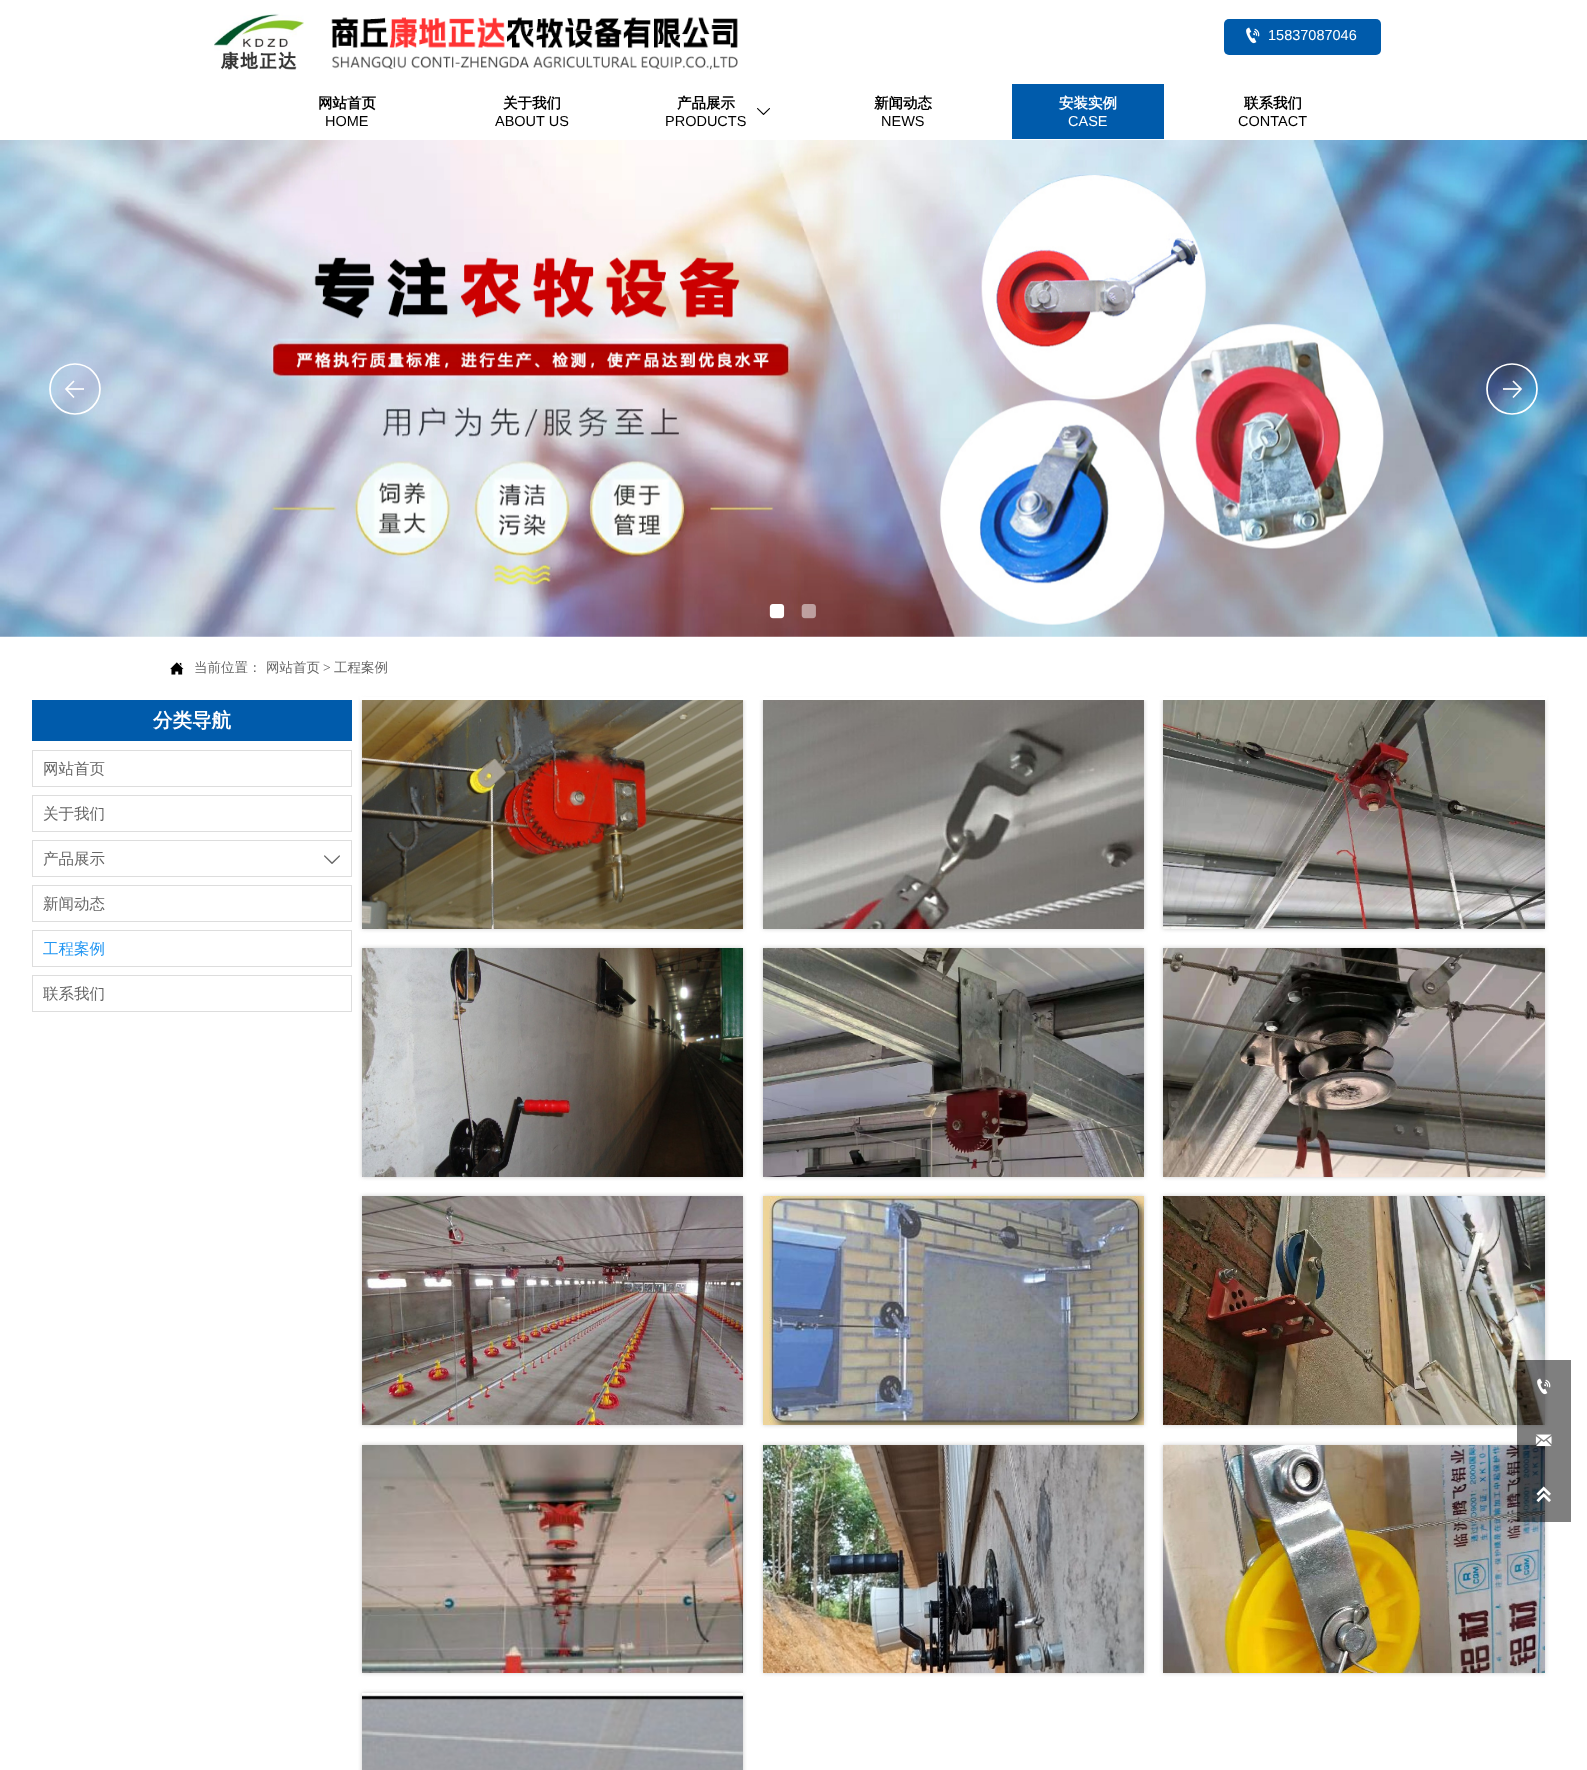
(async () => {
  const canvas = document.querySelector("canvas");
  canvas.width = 1587;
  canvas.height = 1770;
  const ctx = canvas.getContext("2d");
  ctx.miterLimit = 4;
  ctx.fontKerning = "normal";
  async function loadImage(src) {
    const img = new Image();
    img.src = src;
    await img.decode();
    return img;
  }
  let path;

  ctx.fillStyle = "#ffffff";
  ctx.fillRect(0, 0, 1587, 1770);
  ctx.fillStyle = "#cccccc";
  ctx.filter = "blur(2px)";
  ctx.beginPath();
  ctx.rect(362, 700, 381, 229);
  ctx.fill();
  ctx.filter = "none";
  ctx.filter = "blur(2px)";
  ctx.beginPath();
  ctx.rect(763, 700, 381, 229);
  ctx.fill();
  ctx.filter = "none";
  ctx.filter = "blur(2px)";
  ctx.beginPath();
  ctx.rect(1163, 700, 382, 229);
  ctx.fill();
  ctx.filter = "none";
  ctx.fillStyle = "#ffffff";
  ctx.fillRect(360, 697, 1187, 3);
  ctx.drawImage(await loadImage("img/1.png"), 214, 13, 90, 57);
  ctx.drawImage(await loadImage("img/2.png"), 331, 17, 407, 53);
  ctx.fillStyle = "#005bab";
  ctx.beginPath();
  ctx.roundRect(1224, 19, 157, 36, 5);
  ctx.fill();
  ctx.drawImage(await loadImage("img/3.png"), 1246, 27, 14, 17);
  ctx.drawImage(await loadImage("img/4.png"), 757, 108, 13, 7);
  ctx.fillRect(1012, 84, 152, 55);
  ctx.drawImage(await loadImage("img/5.png"), 0, 140, 1587, 497);
  ctx.beginPath();
  ctx.arc(75, 389, 25, 0, Math.PI * 2);
  ctx.strokeStyle = "#ffffff";
  ctx.lineWidth = 1.7;
  ctx.stroke();
  path = new Path2D("M74 381L66 389L74 397.5");
  ctx.stroke(path);
  ctx.fillStyle = "rgba(255, 255, 255, 0.85)";
  ctx.fillRect(66, 388, 18, 2);
  ctx.beginPath();
  ctx.arc(1512, 389, 25, 0, Math.PI * 2);
  ctx.stroke();
  path = new Path2D("M1513 381L1521 389L1513 397.5");
  ctx.stroke(path);
  ctx.fillRect(1503, 388, 18, 2);
  ctx.drawImage(await loadImage("img/6.png"), 769, 604, 16, 15);
  ctx.drawImage(await loadImage("img/7.png"), 801, 604, 15, 15);
  ctx.drawImage(await loadImage("img/8.png"), 170, 662, 14, 13);
  ctx.fillStyle = "#005bab";
  ctx.fillRect(32, 700, 320, 41);
  ctx.strokeStyle = "#dddddd";
  ctx.lineWidth = 1;
  ctx.strokeRect(32.5, 750.5, 319, 36);
  ctx.strokeRect(32.5, 795.5, 319, 36);
  ctx.strokeRect(32.5, 840.5, 319, 36);
  ctx.drawImage(await loadImage("img/9.png"), 324, 855, 16, 9);
  ctx.strokeRect(32.5, 885.5, 319, 36);
  ctx.strokeRect(32.5, 930.5, 319, 36);
  ctx.strokeRect(32.5, 975.5, 319, 36);
  ctx.drawImage(await loadImage("img/10.png"), 362, 700, 381, 229);
  ctx.drawImage(await loadImage("img/11.png"), 763, 700, 381, 229);
  ctx.drawImage(await loadImage("img/12.png"), 1163, 700, 382, 229);
  ctx.fillStyle = "#cccccc";
  ctx.filter = "blur(2px)";
  ctx.beginPath();
  ctx.rect(362, 948, 381, 229);
  ctx.fill();
  ctx.filter = "none";
  ctx.drawImage(await loadImage("img/13.png"), 362, 948, 381, 229);
  ctx.filter = "blur(2px)";
  ctx.beginPath();
  ctx.rect(763, 948, 381, 229);
  ctx.fill();
  ctx.filter = "none";
  ctx.drawImage(await loadImage("img/14.png"), 763, 948, 381, 229);
  ctx.filter = "blur(2px)";
  ctx.beginPath();
  ctx.rect(1163, 948, 382, 229);
  ctx.fill();
  ctx.filter = "none";
  ctx.drawImage(await loadImage("img/15.png"), 1163, 948, 382, 229);
  ctx.filter = "blur(2px)";
  ctx.beginPath();
  ctx.rect(362, 1196, 381, 229);
  ctx.fill();
  ctx.filter = "none";
  ctx.drawImage(await loadImage("img/16.png"), 362, 1196, 381, 229);
  ctx.filter = "blur(2px)";
  ctx.beginPath();
  ctx.rect(763, 1196, 381, 229);
  ctx.fill();
  ctx.filter = "none";
  ctx.drawImage(await loadImage("img/17.png"), 763, 1196, 381, 229);
  ctx.filter = "blur(2px)";
  ctx.beginPath();
  ctx.rect(1163, 1196, 382, 229);
  ctx.fill();
  ctx.filter = "none";
  ctx.drawImage(await loadImage("img/18.png"), 1163, 1196, 382, 229);
  ctx.filter = "blur(2px)";
  ctx.beginPath();
  ctx.rect(362, 1445, 381, 228);
  ctx.fill();
  ctx.filter = "none";
  ctx.drawImage(await loadImage("img/19.png"), 362, 1445, 381, 228);
  ctx.filter = "blur(2px)";
  ctx.beginPath();
  ctx.rect(763, 1445, 381, 228);
  ctx.fill();
  ctx.filter = "none";
  ctx.drawImage(await loadImage("img/20.png"), 763, 1445, 381, 228);
  ctx.filter = "blur(2px)";
  ctx.beginPath();
  ctx.rect(1163, 1445, 382, 228);
  ctx.fill();
  ctx.filter = "none";
  ctx.drawImage(await loadImage("img/21.png"), 1163, 1445, 382, 228);
  ctx.filter = "blur(2px)";
  ctx.beginPath();
  ctx.rect(362, 1693, 381, 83);
  ctx.fill();
  ctx.filter = "none";
  ctx.drawImage(await loadImage("img/22.png"), 362, 1693, 381, 77);
  ctx.fillStyle = "rgba(0, 0, 0, 0.5)";
  ctx.fillRect(1517, 1360, 54, 54);
  ctx.drawImage(await loadImage("img/23.png"), 1537, 1378, 14, 17);
  ctx.fillRect(1517, 1414, 54, 54);
  ctx.drawImage(await loadImage("img/24.png"), 1535, 1434, 17, 13);
  ctx.fillRect(1517, 1468, 54, 54);
  ctx.drawImage(await loadImage("img/25.png"), 1536, 1486, 15, 16);
  ctx.font = "14.5px Liberation Sans";
  ctx.fillStyle = "#ffffff";
  ctx.fillText("15837087046", 1268, 40);
  ctx.font = "bold 14.5px WenQuanYi Zen Hei";
  ctx.fillStyle = "#000000";
  ctx.fillText("网站首页", 318, 108);
  ctx.font = "14.5px Liberation Sans";
  ctx.fillText("HOME", 325, 126);
  ctx.font = "bold 14.5px WenQuanYi Zen Hei";
  ctx.fillText("关于我们", 503, 108);
  ctx.font = "14.5px Liberation Sans";
  ctx.fillText("ABOUT US", 495, 126);
  ctx.font = "bold 14.5px WenQuanYi Zen Hei";
  ctx.fillText("产品展示", 677, 108);
  ctx.font = "14.5px Liberation Sans";
  ctx.fillText("PRODUCTS", 665, 126);
  ctx.font = "bold 14.5px WenQuanYi Zen Hei";
  ctx.fillText("新闻动态", 874, 108);
  ctx.font = "14.5px Liberation Sans";
  ctx.fillText("NEWS", 881, 126);
  ctx.font = "bold 14.5px WenQuanYi Zen Hei";
  ctx.fillStyle = "#ffffff";
  ctx.fillText("安装实例", 1059, 108);
  ctx.font = "14.5px Liberation Sans";
  ctx.fillText("CASE", 1068, 126);
  ctx.font = "bold 14.5px WenQuanYi Zen Hei";
  ctx.fillStyle = "#000000";
  ctx.fillText("联系我们", 1244, 108);
  ctx.font = "14.5px Liberation Sans";
  ctx.fillText("CONTACT", 1238, 126);
  ctx.font = "500 13.5px WenQuanYi Zen Hei";
  ctx.fillStyle = "#666666";
  ctx.fillText("当前位置：", 194, 672);
  ctx.fillText("网站首页", 266, 672);
  ctx.font = "13.5px Liberation Serif";
  ctx.fillText(">", 323, 672);
  ctx.font = "500 13.5px WenQuanYi Zen Hei";
  ctx.fillText("工程案例", 334, 672);
  ctx.font = "bold 19.5px WenQuanYi Zen Hei";
  ctx.fillStyle = "#ffffff";
  ctx.fillText("分类导航", 153, 727);
  ctx.font = "500 15.5px WenQuanYi Zen Hei";
  ctx.fillStyle = "#666666";
  for (const [text, x, y] of [
    ["网站首页", 43, 774],
    ["关于我们", 43, 819],
    ["产品展示", 43, 864],
    ["新闻动态", 43, 909],
  ]) {
    ctx.fillText(text, x, y);
  }
  ctx.fillStyle = "#2196f3";
  ctx.fillText("工程案例", 43, 954);
  ctx.fillStyle = "#666666";
  ctx.fillText("联系我们", 43, 999);
})();
